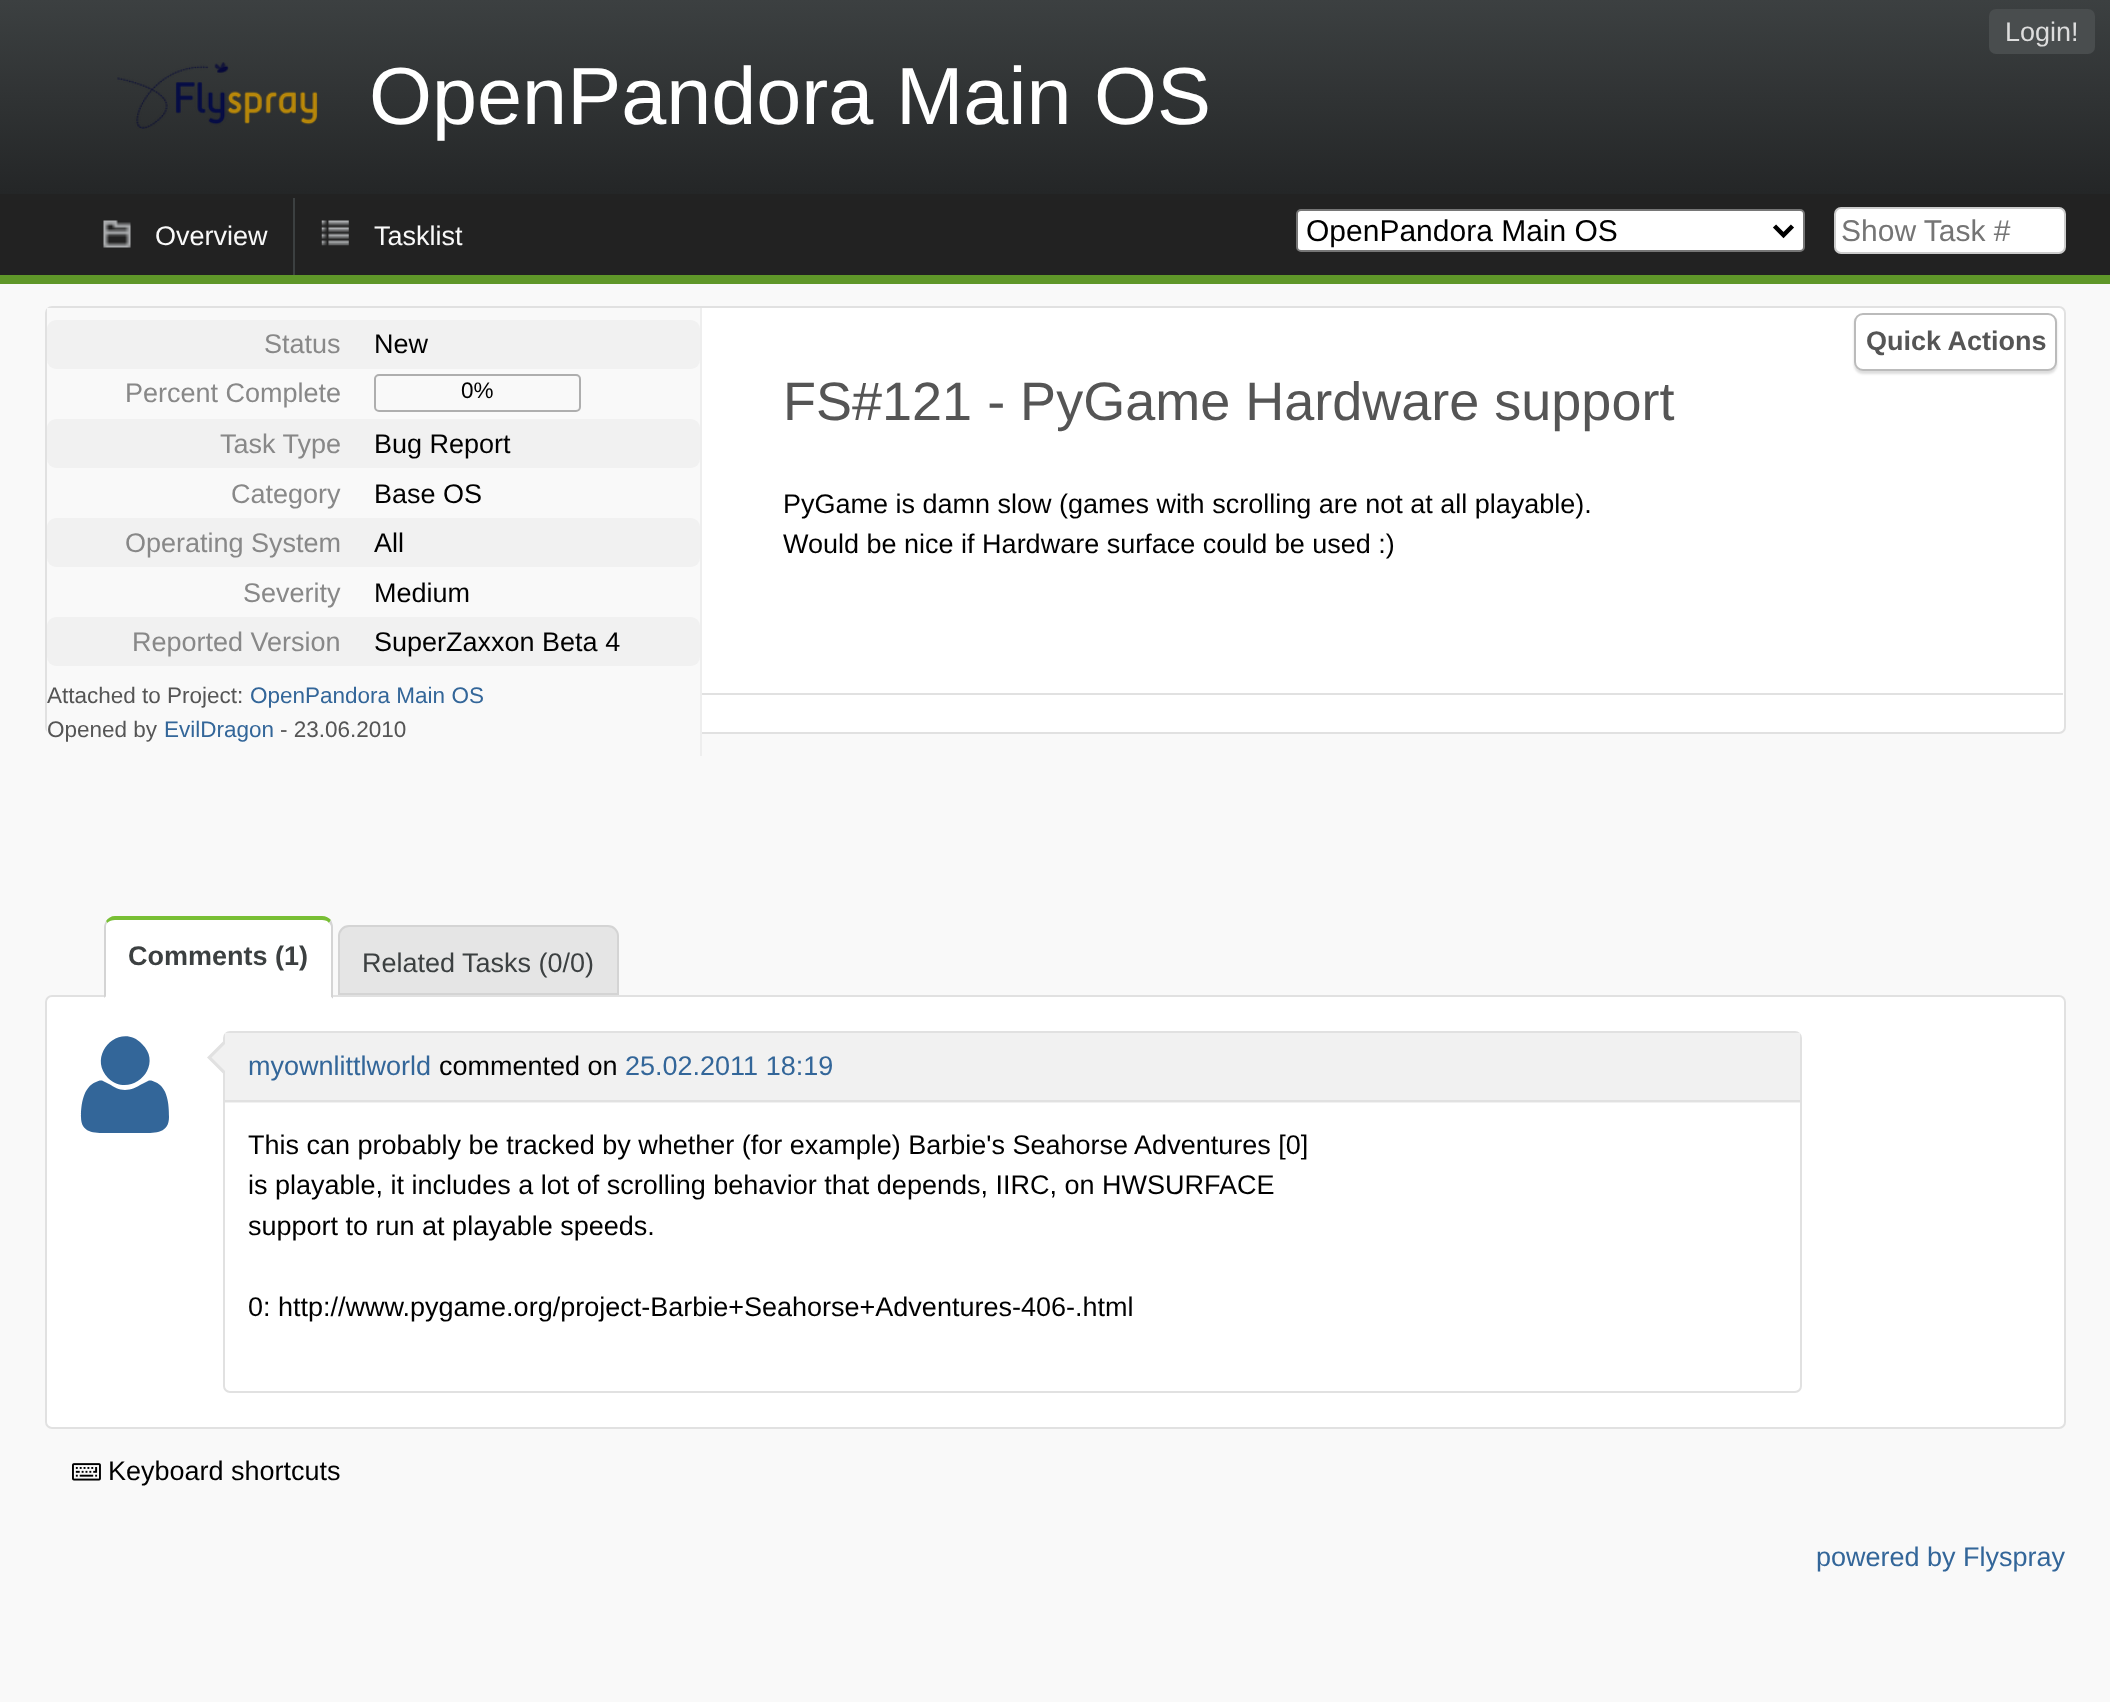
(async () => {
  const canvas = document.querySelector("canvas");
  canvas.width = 2110;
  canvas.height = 1702;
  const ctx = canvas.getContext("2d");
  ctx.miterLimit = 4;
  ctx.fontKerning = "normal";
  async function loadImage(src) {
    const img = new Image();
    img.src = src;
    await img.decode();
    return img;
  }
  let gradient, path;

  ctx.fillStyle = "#f9f9f9";
  ctx.fillRect(0, 0, 2110, 1702);
  gradient = ctx.createLinearGradient(1055, 0, 1055, 194);
  gradient.addColorStop(0, "#3c4041");
  gradient.addColorStop(1, "#242627");
  ctx.fillStyle = gradient;
  ctx.fillRect(0, 0, 2110, 194);
  ctx.fillStyle = "#494d4e";
  ctx.beginPath();
  ctx.roundRect(1989, 9, 106, 45, 7);
  ctx.fill();
  ctx.drawImage(await loadImage("img/1.png"), 117, 62, 201, 67);
  ctx.fillStyle = "#222222";
  ctx.fillRect(0, 194, 2110, 81);
  ctx.fillStyle = "#5f9729";
  ctx.fillRect(0, 275, 2110, 9);
  ctx.drawImage(await loadImage("img/2.png"), 103, 220, 28, 28);
  ctx.drawImage(await loadImage("img/3.png"), 321, 220, 28, 26);
  ctx.fillStyle = "#3c4041";
  ctx.fillRect(293, 198, 2, 77);
  ctx.fillStyle = "#ffffff";
  ctx.beginPath();
  ctx.roundRect(1297, 210, 507, 41, 4);
  ctx.fill();
  ctx.strokeStyle = "#767676";
  ctx.lineWidth = 2;
  ctx.stroke();
  path = new Path2D("M1774.5 226L1783.5 235L1792.5 226");
  ctx.strokeStyle = "#000000";
  ctx.lineWidth = 4.5;
  ctx.stroke(path);
  ctx.beginPath();
  ctx.roundRect(1835, 208, 230, 45, 6);
  ctx.fill();
  ctx.strokeStyle = "#cccccc";
  ctx.lineWidth = 2;
  ctx.stroke();
  ctx.beginPath();
  ctx.roundRect(46, 307, 2019, 426, 6);
  ctx.fill();
  ctx.strokeStyle = "#e1e1e1";
  ctx.stroke();
  ctx.fillStyle = "#f9f9f9";
  ctx.fillRect(47, 308, 653, 426);
  ctx.fillStyle = "#eeeeee";
  ctx.fillRect(700, 308, 2, 448);
  ctx.fillStyle = "#f1f1f1";
  ctx.beginPath();
  ctx.roundRect(47, 320, 653, 49, 9);
  ctx.fill();
  ctx.beginPath();
  ctx.roundRect(375, 375, 205, 36, 4);
  ctx.strokeStyle = "#aeaeae";
  ctx.stroke();
  ctx.beginPath();
  ctx.roundRect(47, 419, 653, 49, 9);
  ctx.fill();
  ctx.beginPath();
  ctx.roundRect(47, 518, 653, 49, 9);
  ctx.fill();
  ctx.beginPath();
  ctx.roundRect(47, 617, 653, 49, 9);
  ctx.fill();
  ctx.fillStyle = "#e1e1e1";
  ctx.fillRect(702, 693, 1361, 2);
  ctx.fillStyle = "#dddddd";
  ctx.filter = "blur(1px)";
  ctx.beginPath();
  ctx.roundRect(1854, 315, 203, 59, 9);
  ctx.fill();
  ctx.filter = "none";
  ctx.fillStyle = "#ffffff";
  ctx.beginPath();
  ctx.roundRect(1855, 314, 201, 56, 8);
  ctx.fill();
  ctx.strokeStyle = "#bbbbbb";
  ctx.stroke();
  ctx.beginPath();
  ctx.roundRect(46, 996, 2019, 432, 6);
  ctx.fill();
  ctx.strokeStyle = "#e1e1e1";
  ctx.stroke();
  path = new Path2D("M115 920H322C327 920 331 923 331 927V997H106V927C106 923 110 920 115 920Z");
  ctx.fill(path);
  ctx.fillStyle = "#78bf34";
  path = new Path2D("M115 916C111 916 108 918 106 921L107 923C109 921 112 920 115 920H322C325 920 328 921 329 923L331 920C329 918 326 916 322 916Z");
  ctx.fill(path);
  ctx.fillStyle = "#d4d4d4";
  path = new Path2D("M331 920C332 922 333 925 333 927V999L331 997V927C331 925 330 924 329 923Z");
  ctx.fill(path);
  ctx.fillStyle = "#ffffff";
  path = new Path2D("M333 999L331 997H106V996L104 999Z");
  ctx.fill(path);
  ctx.fillStyle = "#d4d4d4";
  path = new Path2D("M106 921C105 923 104 925 104 927V998L106 996V927C106 926 106 924 107 923Z");
  ctx.fill(path);
  ctx.fillStyle = "#e5e5e5";
  ctx.beginPath();
  ctx.roundRect(339, 926, 279, 68, [10, 10, 0, 0]);
  ctx.fill();
  ctx.strokeStyle = "#d4d4d4";
  ctx.stroke();
  ctx.fillStyle = "#336699";
  path = new Path2D("M169 1117C169 1133 156 1133 143 1133H107C94 1133 81 1133 81 1117C81 1105 83 1087 96 1082C98 1081 101 1080 103 1081L109 1084C114 1087 119 1090 125 1090C131 1090 137 1087 142 1084L148 1081C150 1080 153 1081 155 1082C168 1087 169 1105 169 1117ZM142 1044C165 1066 131 1100 108 1078C86 1055 120 1021 142 1044Z");
  ctx.fill(path);
  ctx.beginPath();
  ctx.roundRect(224, 1032, 1577, 360, 6);
  ctx.strokeStyle = "#e1e1e1";
  ctx.stroke();
  ctx.fillStyle = "#e1e1e1";
  path = new Path2D("M225 1039.5V1075.5L207 1057.5Z");
  ctx.fill(path);
  ctx.fillStyle = "#f1f1f1";
  path = new Path2D("M225 1044V1071L211.5 1057.5Z");
  ctx.fill(path);
  ctx.fillRect(225, 1033, 1575, 70);
  ctx.fillStyle = "#e1e1e1";
  ctx.fillRect(225, 1100, 1575, 2);
  ctx.drawImage(await loadImage("img/4.png"), 72, 1463, 29, 18);
  ctx.font = "27px Liberation Sans";
  ctx.fillStyle = "#dddddd";
  ctx.fillText("Login!", 2005, 41);
  ctx.font = "81px Liberation Sans";
  ctx.fillStyle = "#ffffff";
  ctx.fillText("OpenPandora Main OS", 369, 124);
  ctx.font = "27px Liberation Sans";
  ctx.fillStyle = "#f9f9f9";
  ctx.fillText("Overview", 155, 245);
  ctx.fillText("Tasklist", 374, 245);
  ctx.font = "30px Liberation Sans";
  ctx.fillStyle = "#000000";
  ctx.fillText("OpenPandora Main OS", 1306, 241);
  ctx.fillStyle = "#757575";
  ctx.fillText("Show Task #", 1841, 241);
  ctx.font = "27px Liberation Sans";
  ctx.fillStyle = "#888888";
  ctx.fillText("Status", 264, 353);
  ctx.fillStyle = "#000000";
  ctx.fillText("New", 374, 353);
  ctx.fillStyle = "#888888";
  ctx.fillText("Percent Complete", 125, 402);
  ctx.font = "22.5px Liberation Sans";
  ctx.fillStyle = "#000000";
  ctx.fillText("0%", 461, 398);
  ctx.font = "27px Liberation Sans";
  ctx.fillStyle = "#888888";
  ctx.fillText("Task Type", 220, 453);
  ctx.fillStyle = "#000000";
  ctx.fillText("Bug Report", 374, 453);
  ctx.fillStyle = "#888888";
  ctx.fillText("Category", 231, 503);
  ctx.fillStyle = "#000000";
  ctx.fillText("Base OS", 374, 503);
  ctx.fillStyle = "#888888";
  ctx.fillText("Operating System", 125, 552);
  ctx.fillStyle = "#000000";
  ctx.fillText("All", 374, 552);
  ctx.fillStyle = "#888888";
  ctx.fillText("Severity", 243, 602);
  ctx.fillStyle = "#000000";
  ctx.fillText("Medium", 374, 602);
  ctx.fillStyle = "#888888";
  ctx.fillText("Reported Version", 132, 651);
  ctx.fillStyle = "#000000";
  ctx.fillText("SuperZaxxon Beta 4", 374, 651);
  ctx.font = "22.5px Liberation Sans";
  ctx.fillStyle = "#555555";
  ctx.fillText("Attached to Project:", 47, 703);
  ctx.fillStyle = "#336699";
  ctx.fillText("OpenPandora Main OS", 250, 703);
  ctx.fillStyle = "#555555";
  ctx.fillText("Opened by", 47, 737);
  ctx.fillStyle = "#336699";
  ctx.fillText("EvilDragon", 164, 737);
  ctx.fillStyle = "#555555";
  ctx.fillText("- 23.06.2010", 280, 737);
  ctx.font = "54px Liberation Sans";
  ctx.fillText("FS#121 - PyGame Hardware support", 783, 420);
  ctx.font = "27px Liberation Sans";
  ctx.fillStyle = "#000000";
  ctx.fillText("PyGame is damn slow (games with scrolling are not at all playable).", 783, 513);
  ctx.fillText("Would be nice if Hardware surface could be used :)", 783, 553);
  ctx.font = "bold 27px Liberation Sans";
  ctx.fillStyle = "#555555";
  ctx.fillText("Quick Actions", 1866, 350);
  ctx.fillStyle = "#3c4041";
  ctx.fillText("Comments (1)", 128, 965);
  ctx.font = "27px Liberation Sans";
  ctx.fillText("Related Tasks (0/0)", 362, 972);
  ctx.fillStyle = "#336699";
  ctx.fillText("myownlittlworld", 248, 1075);
  ctx.fillStyle = "#000000";
  ctx.fillText("commented on", 439, 1075);
  ctx.fillStyle = "#336699";
  ctx.fillText("25.02.2011 18:19", 625, 1075);
  ctx.fillStyle = "#000000";
  for (const [text, x, y] of [
    ["This can probably be tracked by whether (for example) Barbie's Seahorse Adventures [0]", 248, 1154],
    ["is playable, it includes a lot of scrolling behavior that depends, IIRC, on HWSURFACE", 248, 1194],
    ["support to run at playable speeds.", 248, 1235],
    ["0: http://www.pygame.org/project-Barbie+Seahorse+Adventures-406-.html", 248, 1316],
    ["Keyboard shortcuts", 108, 1480],
  ]) {
    ctx.fillText(text, x, y);
  }
  ctx.fillStyle = "#336699";
  ctx.fillText("powered by Flyspray", 1816, 1566);
})();
